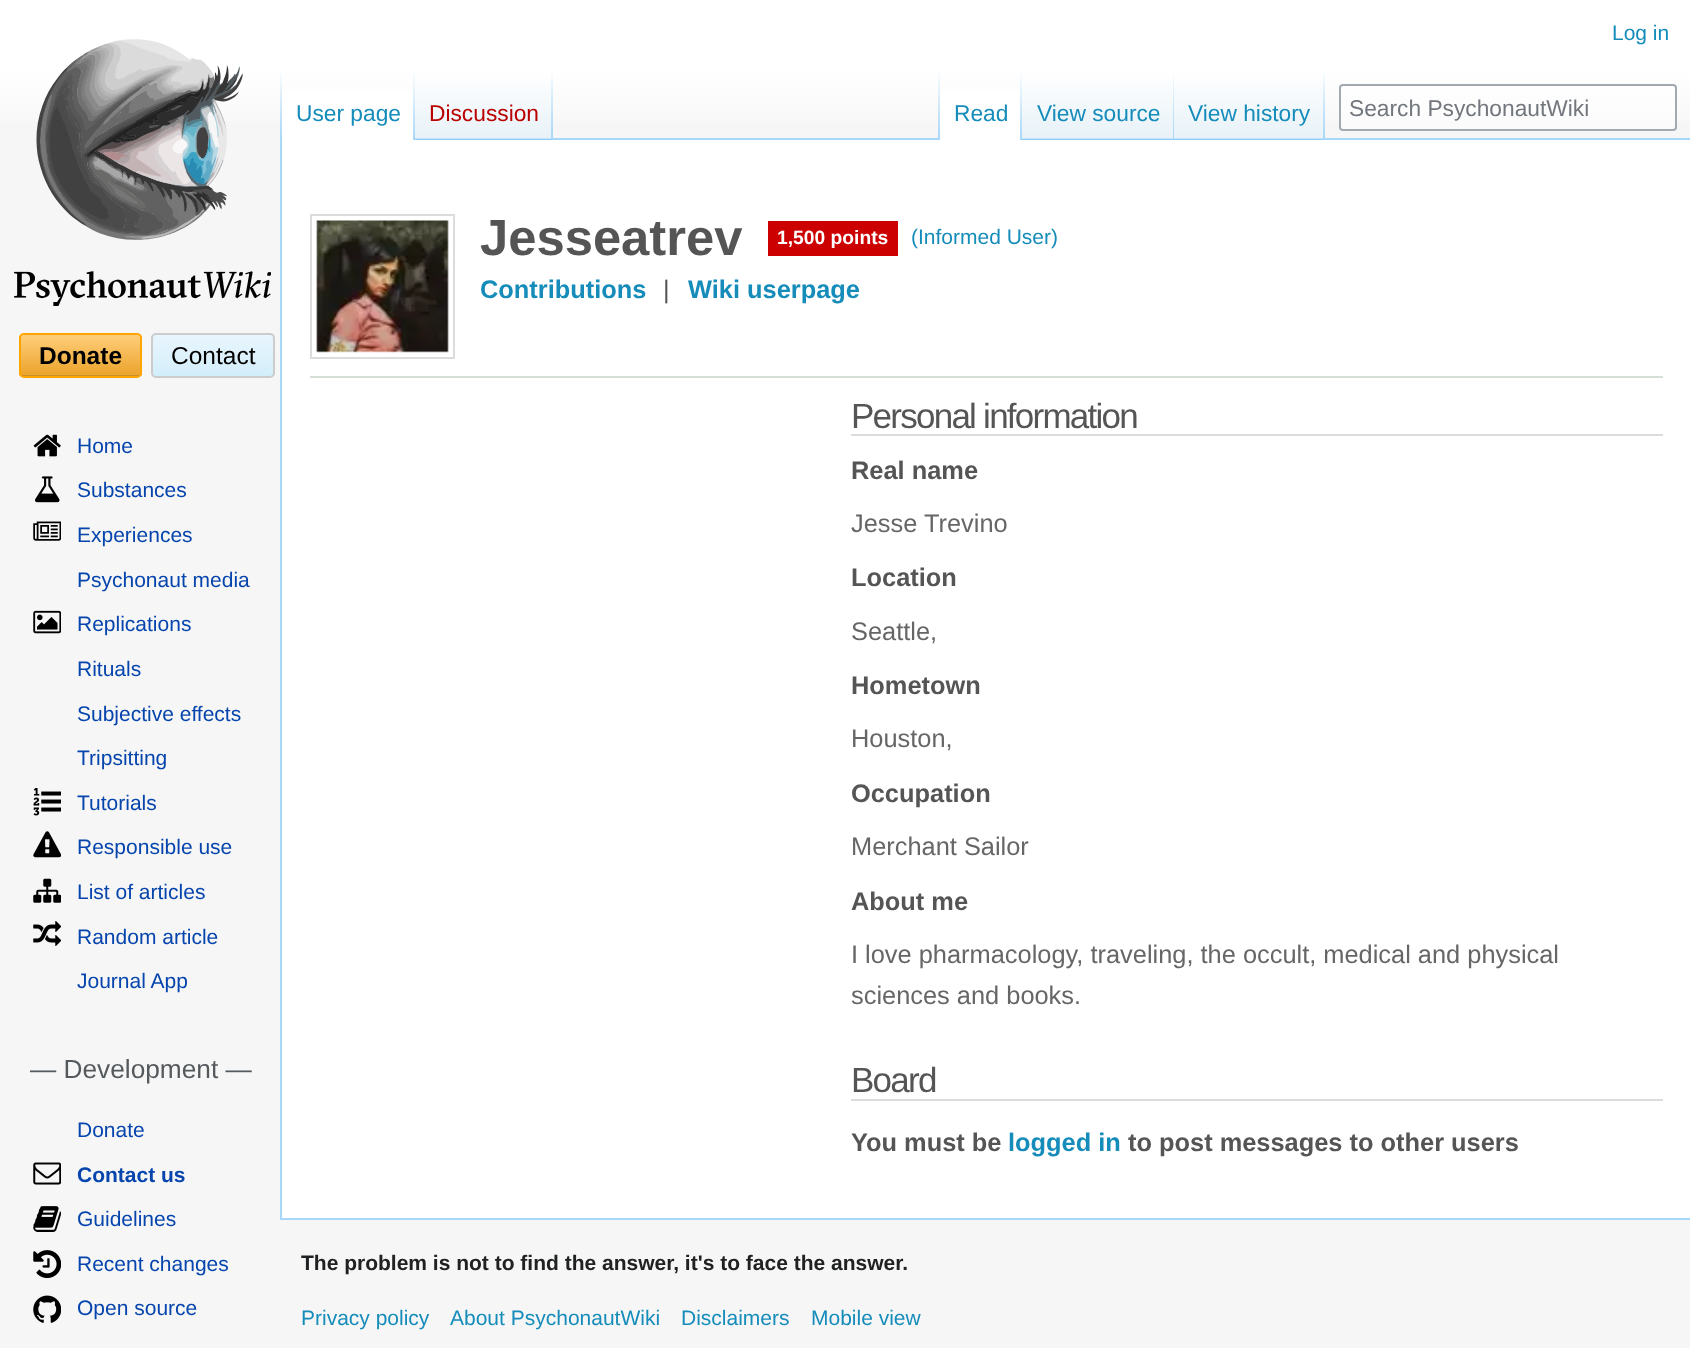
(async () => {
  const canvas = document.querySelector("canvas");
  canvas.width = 1690;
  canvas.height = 1348;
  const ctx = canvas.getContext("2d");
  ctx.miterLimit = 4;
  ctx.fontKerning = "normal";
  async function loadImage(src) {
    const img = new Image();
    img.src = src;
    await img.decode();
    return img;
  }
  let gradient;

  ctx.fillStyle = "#f6f6f6";
  ctx.fillRect(0, 0, 1690, 1348);
  gradient = ctx.createLinearGradient(845, 0, 845, 140);
  gradient.addColorStop(0.5, "#ffffff");
  gradient.addColorStop(1, "#f6f6f6");
  ctx.fillStyle = gradient;
  ctx.fillRect(0, 0, 1690, 121);
  ctx.fillStyle = "#a7d7f9";
  ctx.fillRect(280, 1218, 1410, 2);
  ctx.fillRect(280, 138, 2, 1082);
  gradient = ctx.createLinearGradient(281, 70, 281, 140);
  gradient.addColorStop(0, "rgba(167, 215, 249, 0)");
  gradient.addColorStop(1, "#a7d7f9");
  ctx.fillStyle = gradient;
  ctx.fillRect(280, 70, 2, 70);
  ctx.fillStyle = "#ffffff";
  ctx.fillRect(282, 89, 131, 51);
  gradient = ctx.createLinearGradient(414, 70, 414, 140);
  gradient.addColorStop(0, "#ffffff");
  gradient.addColorStop(1, "#a7d7f9");
  ctx.fillStyle = gradient;
  ctx.fillRect(413, 70, 2, 70);
  gradient = ctx.createLinearGradient(484, 140, 484, 70);
  gradient.addColorStop(0, "#77c1f6");
  gradient.addColorStop(0.03, "#e8f2f8");
  gradient.addColorStop(1, "#ffffff");
  ctx.fillStyle = gradient;
  ctx.fillRect(415, 80, 138, 60);
  gradient = ctx.createLinearGradient(552, 70, 552, 140);
  gradient.addColorStop(0, "rgba(167, 215, 249, 0)");
  gradient.addColorStop(1, "#a7d7f9");
  ctx.fillStyle = gradient;
  ctx.fillRect(551, 70, 2, 70);
  ctx.fillStyle = "#a7d7f9";
  ctx.fillRect(553, 138, 1137, 2);
  gradient = ctx.createLinearGradient(939, 70, 939, 140);
  gradient.addColorStop(0, "rgba(167, 215, 249, 0)");
  gradient.addColorStop(1, "#a7d7f9");
  ctx.fillStyle = gradient;
  ctx.fillRect(938, 70, 2, 70);
  ctx.fillStyle = "#ffffff";
  ctx.fillRect(940, 89, 80, 51);
  gradient = ctx.createLinearGradient(1021, 70, 1021, 140);
  gradient.addColorStop(0, "#ffffff");
  gradient.addColorStop(1, "#a7d7f9");
  ctx.fillStyle = gradient;
  ctx.fillRect(1020, 70, 2, 70);
  gradient = ctx.createLinearGradient(1098, 140, 1098, 70);
  gradient.addColorStop(0, "#77c1f6");
  gradient.addColorStop(0.03, "#e8f2f8");
  gradient.addColorStop(1, "#ffffff");
  ctx.fillStyle = gradient;
  ctx.fillRect(1022, 80, 152, 60);
  gradient = ctx.createLinearGradient(1173, 70, 1173, 140);
  gradient.addColorStop(0, "rgba(167, 215, 249, 0)");
  gradient.addColorStop(1, "#a7d7f9");
  ctx.fillStyle = gradient;
  ctx.fillRect(1173, 70, 1, 70);
  gradient = ctx.createLinearGradient(1250, 140, 1250, 70);
  gradient.addColorStop(0, "#77c1f6");
  gradient.addColorStop(0.03, "#e8f2f8");
  gradient.addColorStop(1, "#ffffff");
  ctx.fillStyle = gradient;
  ctx.fillRect(1174, 80, 151, 60);
  gradient = ctx.createLinearGradient(1324, 70, 1324, 140);
  gradient.addColorStop(0, "rgba(167, 215, 249, 0)");
  gradient.addColorStop(1, "#a7d7f9");
  ctx.fillStyle = gradient;
  ctx.fillRect(1323, 70, 2, 70);
  ctx.fillStyle = "rgba(255, 255, 255, 0.5)";
  ctx.beginPath();
  ctx.roundRect(1340, 85, 336, 45, 3);
  ctx.fill();
  ctx.strokeStyle = "#a2a9b1";
  ctx.lineWidth = 2;
  ctx.stroke();
  ctx.drawImage(await loadImage("img/1.png"), 36, 39, 207, 201);
  ctx.drawImage(await loadImage("img/2.png"), 14, 271, 257, 35);
  ctx.save();
  ctx.beginPath();
  ctx.roundRect(19, 333, 123, 45, 5);
  ctx.clip();
  gradient = ctx.createLinearGradient(21, 334, 21, 376);
  gradient.addColorStop(0, "#ffdfa8");
  gradient.addColorStop(0.02, "#ffce7b");
  gradient.addColorStop(0.97, "#eba42d");
  gradient.addColorStop(1, "#b3802b");
  ctx.fillStyle = gradient;
  ctx.fillRect(19, 334, 123, 42);
  ctx.restore();
  ctx.beginPath();
  ctx.roundRect(20, 334, 121, 43, 4);
  ctx.strokeStyle = "#ffa500";
  ctx.stroke();
  ctx.save();
  ctx.beginPath();
  ctx.roundRect(151, 333, 124, 45, 5);
  ctx.clip();
  gradient = ctx.createLinearGradient(213, 334, 213, 376);
  gradient.addColorStop(0, "#e9f6fd");
  gradient.addColorStop(1, "#d3eefb");
  ctx.fillStyle = gradient;
  ctx.fillRect(151, 334, 124, 42);
  ctx.restore();
  ctx.beginPath();
  ctx.roundRect(152, 334, 122, 43, 4);
  ctx.strokeStyle = "#cccccc";
  ctx.stroke();
  ctx.drawImage(await loadImage("img/3.png"), 33, 434, 28, 23);
  ctx.drawImage(await loadImage("img/4.png"), 35, 476, 25, 27);
  ctx.drawImage(await loadImage("img/5.png"), 33, 521, 28, 20);
  ctx.drawImage(await loadImage("img/6.png"), 33, 610, 28, 24);
  ctx.drawImage(await loadImage("img/7.png"), 33, 788, 28, 28);
  ctx.drawImage(await loadImage("img/8.png"), 33, 831, 28, 27);
  ctx.drawImage(await loadImage("img/9.png"), 33, 878, 28, 25);
  ctx.drawImage(await loadImage("img/10.png"), 33, 921, 28, 25);
  ctx.drawImage(await loadImage("img/11.png"), 33, 1162, 28, 23);
  ctx.drawImage(await loadImage("img/12.png"), 33, 1206, 28, 26);
  ctx.drawImage(await loadImage("img/13.png"), 33, 1250, 28, 29);
  ctx.drawImage(await loadImage("img/14.png"), 33, 1295, 28, 28);
  ctx.fillStyle = "#ffffff";
  ctx.fillRect(282, 140, 1408, 1078);
  ctx.fillStyle = "#d4dfd7";
  ctx.fillRect(310, 376, 1353, 2);
  ctx.strokeStyle = "#dcdcdc";
  ctx.strokeRect(311, 215, 143, 143);
  ctx.drawImage(await loadImage("img/15.png"), 316, 220, 133, 133);
  for (const [x, y, w, h, color] of [
    [768, 221, 130, 35, "#cc0000"],
    [851, 434, 812, 2, "#dcdcdc"],
    [851, 1099, 812, 2, "#dcdcdc"],
  ]) {
    ctx.fillStyle = color;
    ctx.fillRect(x, y, w, h);
  }
  ctx.font = "21px Liberation Sans";
  ctx.fillStyle = "#158cba";
  ctx.fillText("Log in", 1612, 40);
  ctx.font = "22.75px Liberation Sans";
  ctx.fillText("User page", 296, 121);
  ctx.fillStyle = "#ba0000";
  ctx.fillText("Discussion", 429, 121);
  ctx.fillStyle = "#158cba";
  for (const [text, x, y] of [
    ["Read", 954, 121],
    ["View source", 1037, 121],
    ["View history", 1188, 121],
  ]) {
    ctx.fillText(text, x, y);
  }
  ctx.fillStyle = "#72777d";
  ctx.fillText("Search PsychonautWiki", 1349, 116);
  ctx.font = "bold 24.5px Liberation Sans";
  ctx.fillStyle = "#000000";
  ctx.fillText("Donate", 39, 364);
  ctx.font = "24.5px Liberation Sans";
  ctx.fillText("Contact", 171, 364);
  ctx.font = "21px Liberation Sans";
  ctx.fillStyle = "#0645ad";
  for (const [text, x, y] of [
    ["Home", 77, 453],
    ["Substances", 77, 497],
    ["Experiences", 77, 542],
    ["Psychonaut media", 77, 587],
    ["Replications", 77, 631],
    ["Rituals", 77, 676],
    ["Subjective effects", 77, 721],
    ["Tripsitting", 77, 765],
    ["Tutorials", 77, 810],
    ["Responsible use", 77, 854],
    ["List of articles", 77, 899],
    ["Random article", 77, 944],
    ["Journal App", 77, 988],
  ]) {
    ctx.fillText(text, x, y);
  }
  ctx.font = "26.25px Liberation Sans";
  ctx.fillStyle = "#54595d";
  ctx.fillText("— Development —", 30, 1078);
  ctx.font = "21px Liberation Sans";
  ctx.fillStyle = "#0645ad";
  ctx.fillText("Donate", 77, 1137);
  ctx.font = "bold 21px Liberation Sans";
  ctx.fillText("Contact us", 77, 1182);
  ctx.font = "21px Liberation Sans";
  for (const [text, x, y] of [
    ["Guidelines", 77, 1226],
    ["Recent changes", 77, 1271],
    ["Open source", 77, 1315],
  ]) {
    ctx.fillText(text, x, y);
  }
  ctx.font = "bold 50.75px Liberation Sans";
  ctx.fillStyle = "#555555";
  ctx.fillText("Jesseatrev", 480, 255);
  ctx.font = "bold 19.25px Liberation Sans";
  ctx.fillStyle = "#ffffff";
  ctx.fillText("1,500 points", 777, 244);
  ctx.font = "21px Liberation Sans";
  ctx.fillStyle = "#158cba";
  ctx.fillText("(Informed User)", 911, 244);
  ctx.font = "bold 25.4px Liberation Sans";
  ctx.fillText("Contributions", 480, 298);
  ctx.font = "25.4px Liberation Sans";
  ctx.fillStyle = "#555555";
  ctx.fillText("|", 663, 298);
  ctx.font = "bold 25.4px Liberation Sans";
  ctx.fillStyle = "#158cba";
  ctx.fillText("Wiki userpage", 688, 298);
  ctx.letterSpacing = "-1.75px";
  ctx.font = "35px Liberation Sans";
  ctx.fillStyle = "#555555";
  ctx.fillText("Personal information", 851, 428);
  ctx.letterSpacing = "0px";
  ctx.font = "bold 25.4px Liberation Sans";
  ctx.fillText("Real name", 851, 479);
  ctx.font = "25.4px Liberation Sans";
  ctx.fillStyle = "#666666";
  ctx.fillText("Jesse Trevino", 851, 532);
  ctx.font = "bold 25.4px Liberation Sans";
  ctx.fillStyle = "#555555";
  ctx.fillText("Location", 851, 586);
  ctx.font = "25.4px Liberation Sans";
  ctx.fillStyle = "#666666";
  ctx.fillText("Seattle,", 851, 640);
  ctx.font = "bold 25.4px Liberation Sans";
  ctx.fillStyle = "#555555";
  ctx.fillText("Hometown", 851, 694);
  ctx.font = "25.4px Liberation Sans";
  ctx.fillStyle = "#666666";
  ctx.fillText("Houston,", 851, 747);
  ctx.font = "bold 25.4px Liberation Sans";
  ctx.fillStyle = "#555555";
  ctx.fillText("Occupation", 851, 802);
  ctx.font = "25.4px Liberation Sans";
  ctx.fillStyle = "#666666";
  ctx.fillText("Merchant Sailor", 851, 855);
  ctx.font = "bold 25.4px Liberation Sans";
  ctx.fillStyle = "#555555";
  ctx.fillText("About me", 851, 910);
  ctx.font = "25.4px Liberation Sans";
  ctx.fillStyle = "#666666";
  ctx.fillText("I love pharmacology, traveling, the occult, medical and physical", 851, 963);
  ctx.fillText("sciences and books.", 851, 1004);
  ctx.letterSpacing = "-1.75px";
  ctx.font = "35px Liberation Sans";
  ctx.fillStyle = "#555555";
  ctx.fillText("Board", 851, 1092);
  ctx.letterSpacing = "0px";
  ctx.font = "bold 25.4px Liberation Sans";
  ctx.fillText("You must be", 851, 1151);
  ctx.fillStyle = "#158cba";
  ctx.fillText("logged in", 1008, 1151);
  ctx.fillStyle = "#555555";
  ctx.fillText("to post messages to other users", 1128, 1151);
  ctx.font = "bold 21px Liberation Sans";
  ctx.fillStyle = "#202122";
  ctx.fillText("The problem is not to find the answer, it's to face the answer.", 301, 1270);
  ctx.font = "21px Liberation Sans";
  ctx.fillStyle = "#158cba";
  for (const [text, x, y] of [
    ["Privacy policy", 301, 1325],
    ["About PsychonautWiki", 450, 1325],
    ["Disclaimers", 681, 1325],
    ["Mobile view", 811, 1325],
  ]) {
    ctx.fillText(text, x, y);
  }
})();
